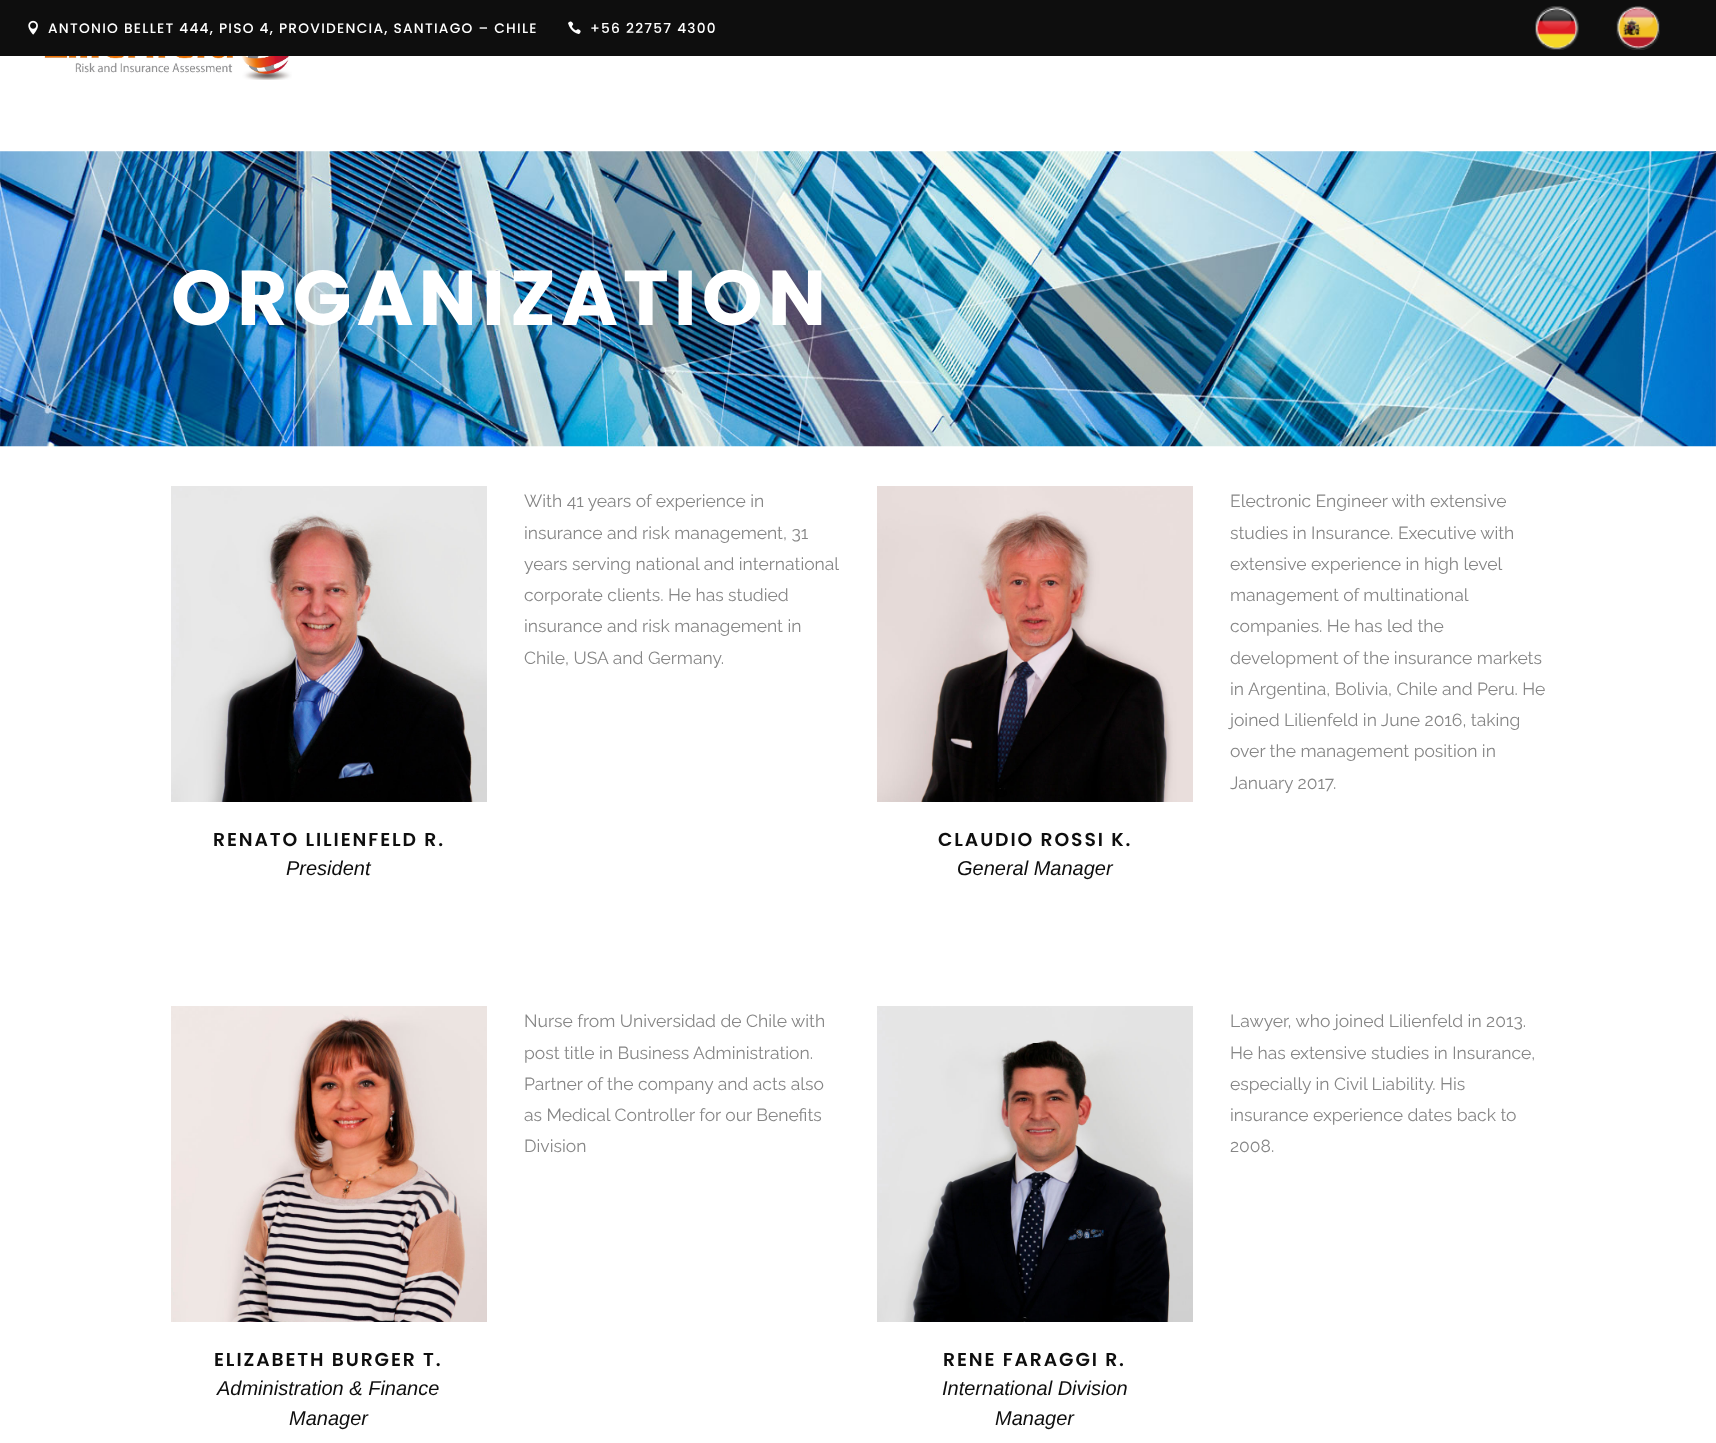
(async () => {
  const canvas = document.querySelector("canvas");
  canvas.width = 1716;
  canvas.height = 1443;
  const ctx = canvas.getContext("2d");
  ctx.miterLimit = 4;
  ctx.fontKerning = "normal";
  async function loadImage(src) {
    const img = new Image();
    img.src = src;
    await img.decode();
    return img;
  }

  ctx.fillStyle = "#ffffff";
  ctx.fillRect(0, 0, 1716, 1443);
  ctx.fillStyle = "#0e0e0e";
  ctx.fillRect(0, 0, 1716, 56);
  ctx.drawImage(await loadImage("img/1.png"), 28, 20, 10, 15);
  ctx.drawImage(await loadImage("img/2.png"), 568, 21, 13, 13);
  ctx.drawImage(await loadImage("img/3.png"), 1535, 6, 44, 44);
  ctx.drawImage(await loadImage("img/4.png"), 1616, 6, 44, 44);
  ctx.drawImage(await loadImage("img/5.png"), 44, 56, 248, 24);
  ctx.drawImage(await loadImage("img/6.png"), 0, 151, 1716, 296);
  ctx.drawImage(await loadImage("img/7.png"), 171, 486, 316, 316);
  ctx.drawImage(await loadImage("img/8.png"), 877, 486, 316, 316);
  ctx.drawImage(await loadImage("img/9.png"), 171, 1006, 316, 316);
  ctx.drawImage(await loadImage("img/10.png"), 877, 1006, 316, 316);
  ctx.letterSpacing = "1.25px";
  ctx.font = "500 13.75px Poppins";
  ctx.fillStyle = "#ffffff";
  ctx.fillText("ANTONIO BELLET 444, PISO 4, PROVIDENCIA, SANTIAGO – CHILE", 48, 33);
  ctx.fillText("+56 22757 4300", 590, 33);
  ctx.letterSpacing = "5px";
  ctx.font = "bold 77.5px Poppins";
  ctx.fillText("ORGANIZATION", 171, 325);
  ctx.letterSpacing = "0px";
  ctx.font = "17.5px Raleway";
  ctx.fillStyle = "#868686";
  for (const [text, x, y] of [
    ["With 41 years of experience in", 524, 507],
    ["insurance and risk management, 31", 524, 539],
    ["years serving national and international", 524, 570],
    ["corporate clients. He has studied", 524, 601],
    ["insurance and risk management in", 524, 632],
    ["Chile, USA and Germany.", 524, 664],
  ]) {
    ctx.fillText(text, x, y);
  }
  ctx.letterSpacing = "1.9px";
  ctx.font = "600 18.75px Poppins";
  ctx.fillStyle = "#0e0e0e";
  ctx.fillText("RENATO LILIENFELD R.", 213, 846);
  ctx.letterSpacing = "0px";
  ctx.font = "italic 20px Liberation Sans";
  ctx.fillText("President", 286, 875);
  ctx.font = "17.5px Raleway";
  ctx.fillStyle = "#868686";
  for (const [text, x, y] of [
    ["Electronic Engineer with extensive", 1230, 507],
    ["studies in Insurance. Executive with", 1230, 539],
    ["extensive experience in high level", 1230, 570],
    ["management of multinational", 1230, 601],
    ["companies. He has led the", 1230, 632],
    ["development of the insurance markets", 1230, 664],
    ["in Argentina, Bolivia, Chile and Peru. He", 1230, 695],
    ["joined Lilienfeld in June 2016, taking", 1230, 726],
    ["over the management position in", 1230, 757],
    ["January 2017.", 1230, 789],
  ]) {
    ctx.fillText(text, x, y);
  }
  ctx.letterSpacing = "1.9px";
  ctx.font = "600 18.75px Poppins";
  ctx.fillStyle = "#0e0e0e";
  ctx.fillText("CLAUDIO ROSSI K.", 938, 846);
  ctx.letterSpacing = "0px";
  ctx.font = "italic 20px Liberation Sans";
  ctx.fillText("General Manager", 957, 875);
  ctx.font = "17.5px Raleway";
  ctx.fillStyle = "#868686";
  for (const [text, x, y] of [
    ["Nurse from Universidad de Chile with", 524, 1027],
    ["post title in Business Administration.", 524, 1059],
    ["Partner of the company and acts also", 524, 1090],
    ["as Medical Controller for our Benefits", 524, 1121],
    ["Division", 524, 1152],
  ]) {
    ctx.fillText(text, x, y);
  }
  ctx.letterSpacing = "1.9px";
  ctx.font = "600 18.75px Poppins";
  ctx.fillStyle = "#0e0e0e";
  ctx.fillText("ELIZABETH BURGER T.", 214, 1366);
  ctx.letterSpacing = "0px";
  ctx.font = "italic 20px Liberation Sans";
  ctx.fillText("Administration & Finance", 217, 1395);
  ctx.fillText("Manager", 289, 1425);
  ctx.font = "17.5px Raleway";
  ctx.fillStyle = "#868686";
  for (const [text, x, y] of [
    ["Lawyer, who joined Lilienfeld in 2013.", 1230, 1027],
    ["He has extensive studies in Insurance,", 1230, 1059],
    ["especially in Civil Liability. His", 1230, 1090],
    ["insurance experience dates back to", 1230, 1121],
    ["2008.", 1230, 1152],
  ]) {
    ctx.fillText(text, x, y);
  }
  ctx.letterSpacing = "1.9px";
  ctx.font = "600 18.75px Poppins";
  ctx.fillStyle = "#0e0e0e";
  ctx.fillText("RENE FARAGGI R.", 943, 1366);
  ctx.letterSpacing = "0px";
  ctx.font = "italic 20px Liberation Sans";
  ctx.fillText("International Division", 942, 1395);
  ctx.fillText("Manager", 995, 1425);
})();
